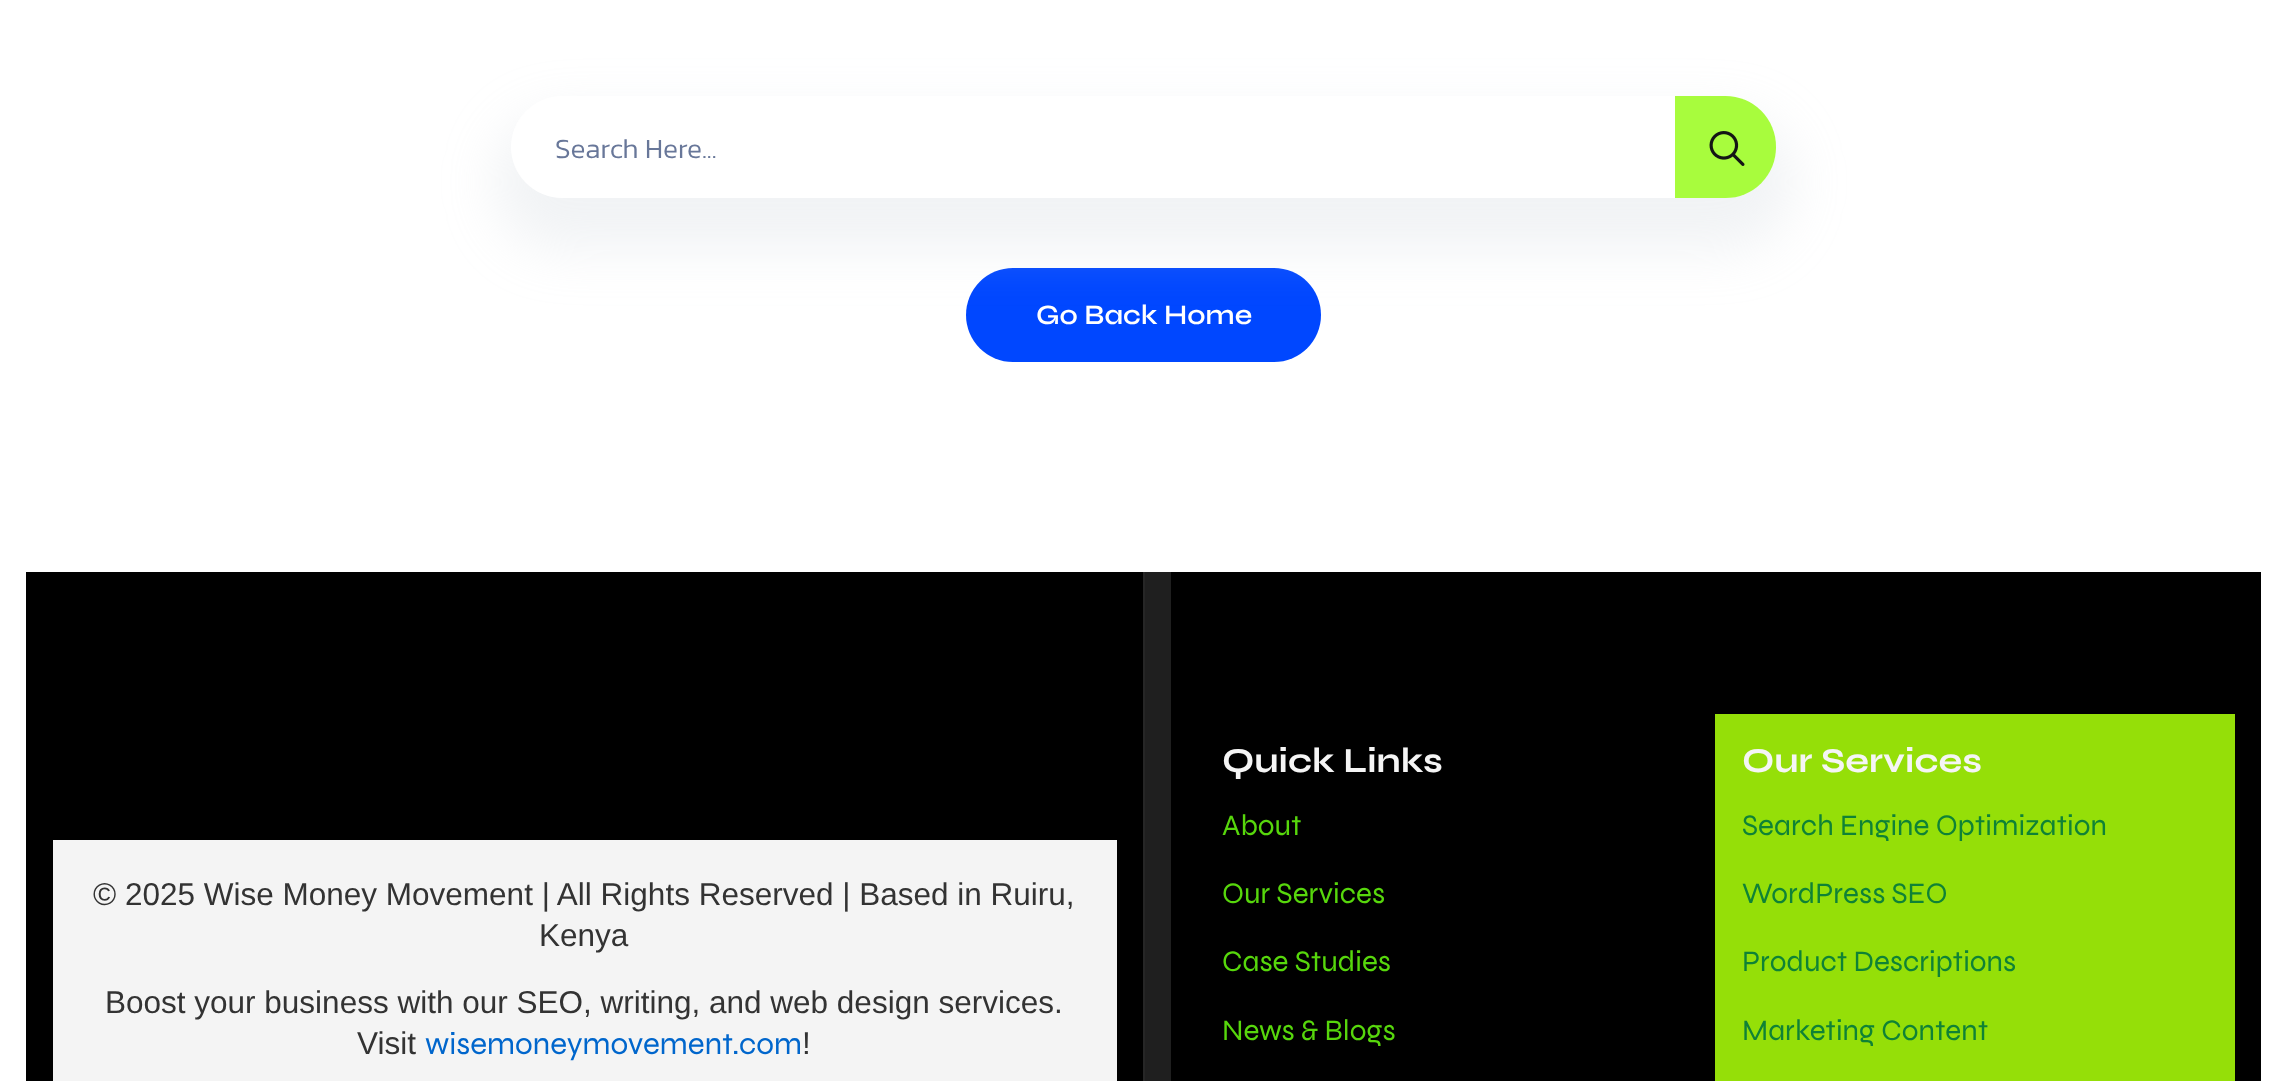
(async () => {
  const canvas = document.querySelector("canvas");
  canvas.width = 2286;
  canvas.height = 1081;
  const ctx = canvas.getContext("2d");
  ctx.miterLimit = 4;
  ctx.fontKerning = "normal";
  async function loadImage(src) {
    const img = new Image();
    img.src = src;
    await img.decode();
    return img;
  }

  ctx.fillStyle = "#ffffff";
  ctx.fillRect(0, 0, 2286, 1081);
  ctx.fillStyle = "#0047ff";
  ctx.beginPath();
  ctx.roundRect(966, 268, 355, 94, 47);
  ctx.fill();
  ctx.fillStyle = "rgba(200, 208, 214, 0.25)";
  ctx.filter = "blur(26px)";
  ctx.beginPath();
  ctx.roundRect(494, 114, 1300, 136, 68);
  ctx.fill();
  ctx.filter = "none";
  ctx.fillStyle = "#ffffff";
  ctx.beginPath();
  ctx.roundRect(511, 96, 1265, 102, 51);
  ctx.fill();
  ctx.fillStyle = "#a8fc3d";
  ctx.beginPath();
  ctx.roundRect(1675, 96, 101, 102, [0, 50.5, 50.5, 0]);
  ctx.fill();
  ctx.drawImage(await loadImage("img/1.png"), 1709, 131, 36, 35);
  for (const [x, y, w, h, color] of [
    [1145, 572, 26, 509, "#1f1f1f"],
    [26, 572, 1117, 509, "#000000"],
    [1143, 572, 2, 509, "#262626"],
    [53, 840, 1064, 241, "#f4f4f4"],
    [1171, 572, 1090, 509, "#000000"],
    [1715, 714, 520, 367, "#95df08"],
  ]) {
    ctx.fillStyle = color;
    ctx.fillRect(x, y, w, h);
  }
  ctx.font = "300 28px Kanit";
  ctx.fillStyle = "#687799";
  ctx.fillText("Search Here...", 555, 158);
  ctx.font = "600 28px Syne";
  ctx.fillStyle = "#ffffff";
  ctx.fillText("Go Back Home", 1036, 324);
  ctx.font = "31.5px Liberation Sans";
  ctx.fillStyle = "#333333";
  for (const [text, x, y] of [
    ["© 2025 Wise Money Movement | All Rights Reserved | Based in Ruiru,", 93, 905],
    ["Kenya", 539, 946],
    ["Boost your business with our SEO, writing, and web design services.", 105, 1013],
    ["Visit", 357, 1054],
  ]) {
    ctx.fillText(text, x, y);
  }
  ctx.font = "31.5px Syne";
  ctx.fillStyle = "#0066cc";
  ctx.fillText("wisemoneymovement.com", 425, 1054);
  ctx.font = "31.5px Liberation Sans";
  ctx.fillStyle = "#333333";
  ctx.fillText("!", 802, 1054);
  ctx.font = "bold 35px Syne";
  ctx.fillStyle = "#f5f5f5";
  ctx.fillText("Quick Links", 1222, 772);
  ctx.font = "29.75px Syne";
  ctx.fillStyle = "#57d70c";
  for (const [text, x, y] of [
    ["About", 1222, 835],
    ["Our Services", 1222, 903],
    ["Case Studies", 1222, 971],
    ["News & Blogs", 1222, 1040],
  ]) {
    ctx.fillText(text, x, y);
  }
  ctx.font = "bold 35px Syne";
  ctx.fillStyle = "#f5f5f5";
  ctx.fillText("Our Services", 1742, 772);
  ctx.font = "29.75px Syne";
  ctx.fillStyle = "#0f8236";
  for (const [text, x, y] of [
    ["Search Engine Optimization", 1742, 835],
    ["WordPress SEO", 1742, 903],
    ["Product Descriptions", 1742, 971],
    ["Marketing Content", 1742, 1040],
  ]) {
    ctx.fillText(text, x, y);
  }
})();
